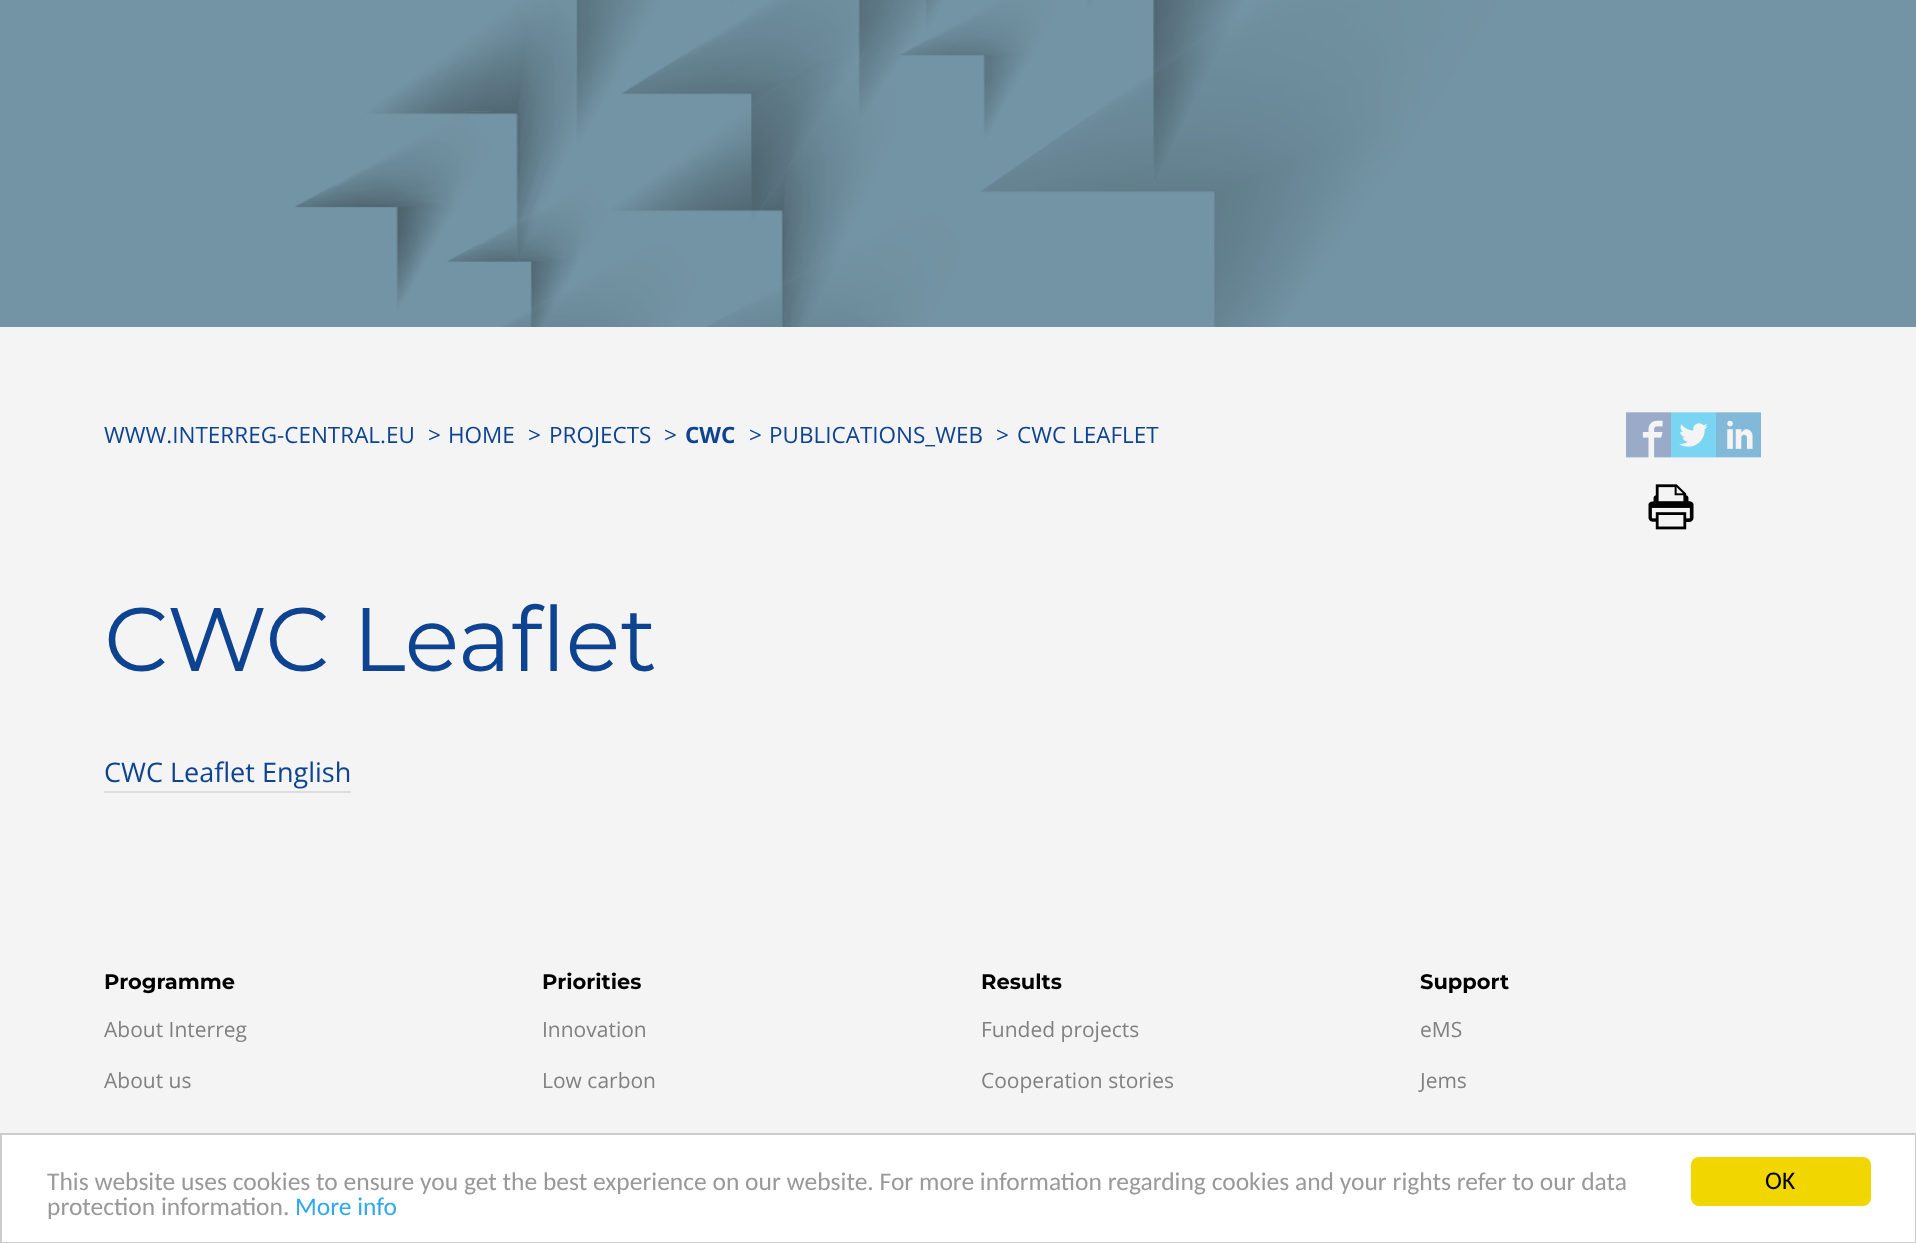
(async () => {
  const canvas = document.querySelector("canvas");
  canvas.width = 1916;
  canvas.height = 1243;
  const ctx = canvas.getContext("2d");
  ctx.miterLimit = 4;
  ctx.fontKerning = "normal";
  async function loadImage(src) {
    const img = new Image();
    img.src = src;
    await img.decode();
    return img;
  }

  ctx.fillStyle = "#f4f4f4";
  ctx.fillRect(0, 0, 1916, 1243);
  ctx.drawImage(await loadImage("img/1.png"), 0, 0, 1916, 327);
  ctx.drawImage(await loadImage("img/2.png"), 1626, 412, 45, 46);
  ctx.drawImage(await loadImage("img/3.png"), 1671, 412, 45, 46);
  ctx.drawImage(await loadImage("img/4.png"), 1716, 412, 45, 46);
  ctx.drawImage(await loadImage("img/5.png"), 1648, 484, 46, 46);
  ctx.fillStyle = "#dcdcdc";
  ctx.fillRect(104, 791, 247, 2);
  ctx.fillStyle = "#ffffff";
  ctx.beginPath();
  ctx.rect(1, 1134, 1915, 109);
  ctx.fill();
  ctx.strokeStyle = "#cccccc";
  ctx.lineWidth = 2;
  ctx.stroke();
  ctx.fillStyle = "#f1d600";
  ctx.beginPath();
  ctx.roundRect(1691, 1157, 180, 49, 8);
  ctx.fill();
  ctx.font = "22.5px Open Sans";
  ctx.fillStyle = "#0d4391";
  for (const [text, x, y] of [
    ["WWW.INTERREG-CENTRAL.EU", 104, 443],
    [">", 428, 443],
    ["HOME", 448, 443],
    [">", 528, 443],
    ["PROJECTS", 549, 443],
    [">", 664, 443],
  ]) {
    ctx.fillText(text, x, y);
  }
  ctx.font = "bold 22.5px Open Sans";
  ctx.fillText("CWC", 685, 443);
  ctx.font = "22.5px Open Sans";
  for (const [text, x, y] of [
    [">", 749, 443],
    ["PUBLICATIONS_WEB", 769, 443],
    [">", 996, 443],
    ["CWC LEAFLET", 1017, 443],
  ]) {
    ctx.fillText(text, x, y);
  }
  ctx.font = "90px Montserrat";
  ctx.fillText("CWC Leaflet", 104, 671);
  ctx.font = "27px Open Sans";
  ctx.fillText("CWC Leaflet English", 104, 782);
  ctx.font = "bold 21px Montserrat";
  ctx.fillStyle = "#000000";
  ctx.fillText("Programme", 104, 989);
  ctx.font = "21px Open Sans";
  ctx.fillStyle = "#818181";
  ctx.fillText("About Interreg", 104, 1037);
  ctx.fillText("About us", 104, 1088);
  ctx.font = "bold 21px Montserrat";
  ctx.fillStyle = "#000000";
  ctx.fillText("Priorities", 542, 989);
  ctx.font = "21px Open Sans";
  ctx.fillStyle = "#818181";
  ctx.fillText("Innovation", 542, 1037);
  ctx.fillText("Low carbon", 542, 1088);
  ctx.font = "bold 21px Montserrat";
  ctx.fillStyle = "#000000";
  ctx.fillText("Results", 981, 989);
  ctx.font = "21px Open Sans";
  ctx.fillStyle = "#818181";
  ctx.fillText("Funded projects", 981, 1037);
  ctx.fillText("Cooperation stories", 981, 1088);
  ctx.font = "bold 21px Montserrat";
  ctx.fillStyle = "#000000";
  ctx.fillText("Support", 1420, 989);
  ctx.font = "21px Open Sans";
  ctx.fillStyle = "#818181";
  ctx.fillText("eMS", 1420, 1037);
  ctx.fillText("Jems", 1420, 1088);
  ctx.font = "25.5px Carlito";
  ctx.fillStyle = "#999999";
  ctx.fillText("This website uses cookies to ensure you get the best experience on our website. For more information regarding cookies and your rights refer to our data", 47, 1190);
  ctx.fillText("protection information.", 47, 1215);
  ctx.fillStyle = "#31a8f0";
  ctx.fillText("More info", 295, 1215);
  ctx.fillStyle = "#000000";
  ctx.fillText("OK", 1765, 1189);
})();
